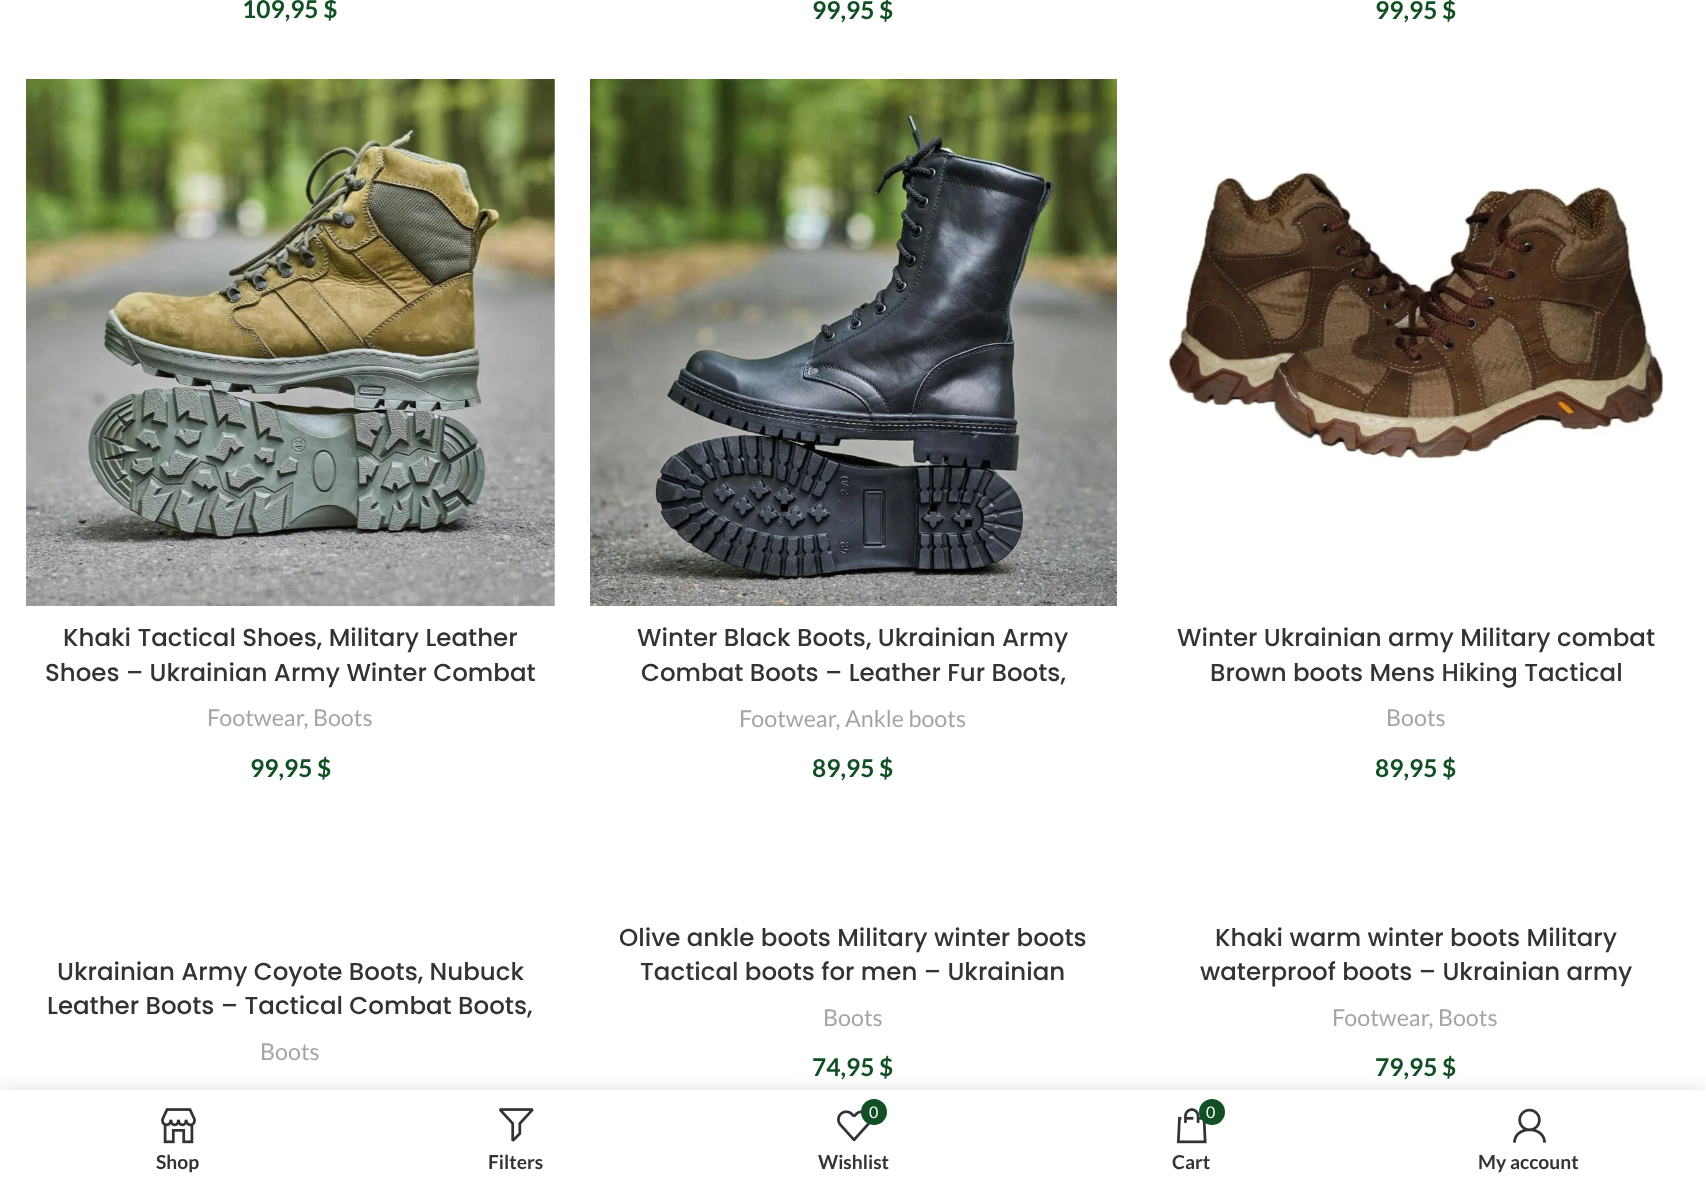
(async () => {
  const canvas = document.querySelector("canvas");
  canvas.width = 1706;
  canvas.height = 1185;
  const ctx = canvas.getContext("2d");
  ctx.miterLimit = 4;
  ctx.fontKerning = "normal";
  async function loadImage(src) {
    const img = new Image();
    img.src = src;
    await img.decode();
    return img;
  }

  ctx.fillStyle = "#ffffff";
  ctx.fillRect(0, 0, 1706, 1185);
  ctx.drawImage(await loadImage("img/1.png"), 26, 79, 529, 527);
  ctx.drawImage(await loadImage("img/2.png"), 590, 79, 527, 527);
  ctx.drawImage(await loadImage("img/3.png"), 1167, 171, 497, 290);
  ctx.fillStyle = "rgba(0, 0, 0, 0.12)";
  ctx.filter = "blur(8px)";
  ctx.beginPath();
  ctx.rect(0, 1090, 1706, 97);
  ctx.fill();
  ctx.filter = "none";
  ctx.fillStyle = "#ffffff";
  ctx.fillRect(0, 1090, 1706, 95);
  ctx.drawImage(await loadImage("img/4.png"), 161, 1108, 35, 36);
  ctx.drawImage(await loadImage("img/5.png"), 498, 1108, 36, 34);
  ctx.drawImage(await loadImage("img/6.png"), 837, 1110, 33, 31);
  ctx.fillStyle = "#124f24";
  ctx.beginPath();
  ctx.arc(874, 1112, 13, 0, Math.PI * 2);
  ctx.fill();
  ctx.drawImage(await loadImage("img/7.png"), 1176, 1108, 31, 36);
  ctx.beginPath();
  ctx.arc(1212, 1112, 13, 0, Math.PI * 2);
  ctx.fill();
  ctx.drawImage(await loadImage("img/8.png"), 1513, 1108, 33, 35);
  ctx.font = "bold 24.5px Lato";
  for (const [text, x, y] of [
    ["109,95 $", 242, 18],
    ["99,95 $", 812, 19],
    ["99,95 $", 1375, 19],
  ]) {
    ctx.fillText(text, x, y);
  }
  ctx.font = "500 24.5px Poppins";
  ctx.fillStyle = "#333333";
  ctx.fillText("Khaki Tactical Shoes, Military Leather", 63, 646);
  ctx.fillText("Shoes – Ukrainian Army Winter Combat", 45, 681);
  ctx.font = "23.25px Lato";
  ctx.fillStyle = "#a5a5a5";
  ctx.fillText("Footwear, Boots", 207, 726);
  ctx.font = "bold 24.5px Lato";
  ctx.fillStyle = "#124f24";
  ctx.fillText("99,95 $", 250, 777);
  ctx.font = "500 24.5px Poppins";
  ctx.fillStyle = "#333333";
  ctx.fillText("Winter Black Boots, Ukrainian Army", 637, 646);
  ctx.fillText("Combat Boots – Leather Fur Boots,", 641, 681);
  ctx.font = "23.25px Lato";
  ctx.fillStyle = "#a5a5a5";
  ctx.fillText("Footwear, Ankle boots", 739, 727);
  ctx.font = "bold 24.5px Lato";
  ctx.fillStyle = "#124f24";
  ctx.fillText("89,95 $", 812, 777);
  ctx.font = "500 24.5px Poppins";
  ctx.fillStyle = "#333333";
  ctx.fillText("Winter Ukrainian army Military combat", 1177, 646);
  ctx.fillText("Brown boots Mens Hiking Tactical", 1210, 681);
  ctx.font = "23.25px Lato";
  ctx.fillStyle = "#a5a5a5";
  ctx.fillText("Boots", 1386, 726);
  ctx.font = "bold 24.5px Lato";
  ctx.fillStyle = "#124f24";
  ctx.fillText("89,95 $", 1375, 777);
  ctx.font = "500 24.5px Poppins";
  ctx.fillStyle = "#333333";
  ctx.fillText("Ukrainian Army Coyote Boots, Nubuck", 57, 980);
  ctx.fillText("Leather Boots – Tactical Combat Boots,", 47, 1014);
  ctx.font = "23.25px Lato";
  ctx.fillStyle = "#a5a5a5";
  ctx.fillText("Boots", 260, 1060);
  ctx.font = "500 24.5px Poppins";
  ctx.fillStyle = "#333333";
  ctx.fillText("Olive ankle boots Military winter boots", 619, 946);
  ctx.fillText("Tactical boots for men – Ukrainian", 640, 980);
  ctx.font = "23.25px Lato";
  ctx.fillStyle = "#a5a5a5";
  ctx.fillText("Boots", 823, 1026);
  ctx.font = "bold 24.5px Lato";
  ctx.fillStyle = "#124f24";
  ctx.fillText("74,95 $", 812, 1076);
  ctx.font = "500 24.5px Poppins";
  ctx.fillStyle = "#333333";
  ctx.fillText("Khaki warm winter boots Military", 1215, 946);
  ctx.fillText("waterproof boots – Ukrainian army", 1200, 980);
  ctx.font = "23.25px Lato";
  ctx.fillStyle = "#a5a5a5";
  ctx.fillText("Footwear, Boots", 1332, 1026);
  ctx.font = "bold 24.5px Lato";
  ctx.fillStyle = "#124f24";
  ctx.fillText("79,95 $", 1375, 1076);
  ctx.font = "bold 19.25px Lato";
  ctx.fillStyle = "#333333";
  ctx.fillText("Shop", 156, 1169);
  ctx.fillText("Filters", 488, 1169);
  ctx.font = "16px Lato";
  ctx.fillStyle = "#ffffff";
  ctx.fillText("0", 869, 1118);
  ctx.font = "bold 19.25px Lato";
  ctx.fillStyle = "#333333";
  ctx.fillText("Wishlist", 818, 1169);
  ctx.font = "16px Lato";
  ctx.fillStyle = "#ffffff";
  ctx.fillText("0", 1206, 1118);
  ctx.font = "bold 19.25px Lato";
  ctx.fillStyle = "#333333";
  ctx.fillText("Cart", 1172, 1169);
  ctx.fillText("My account", 1478, 1169);
})();
